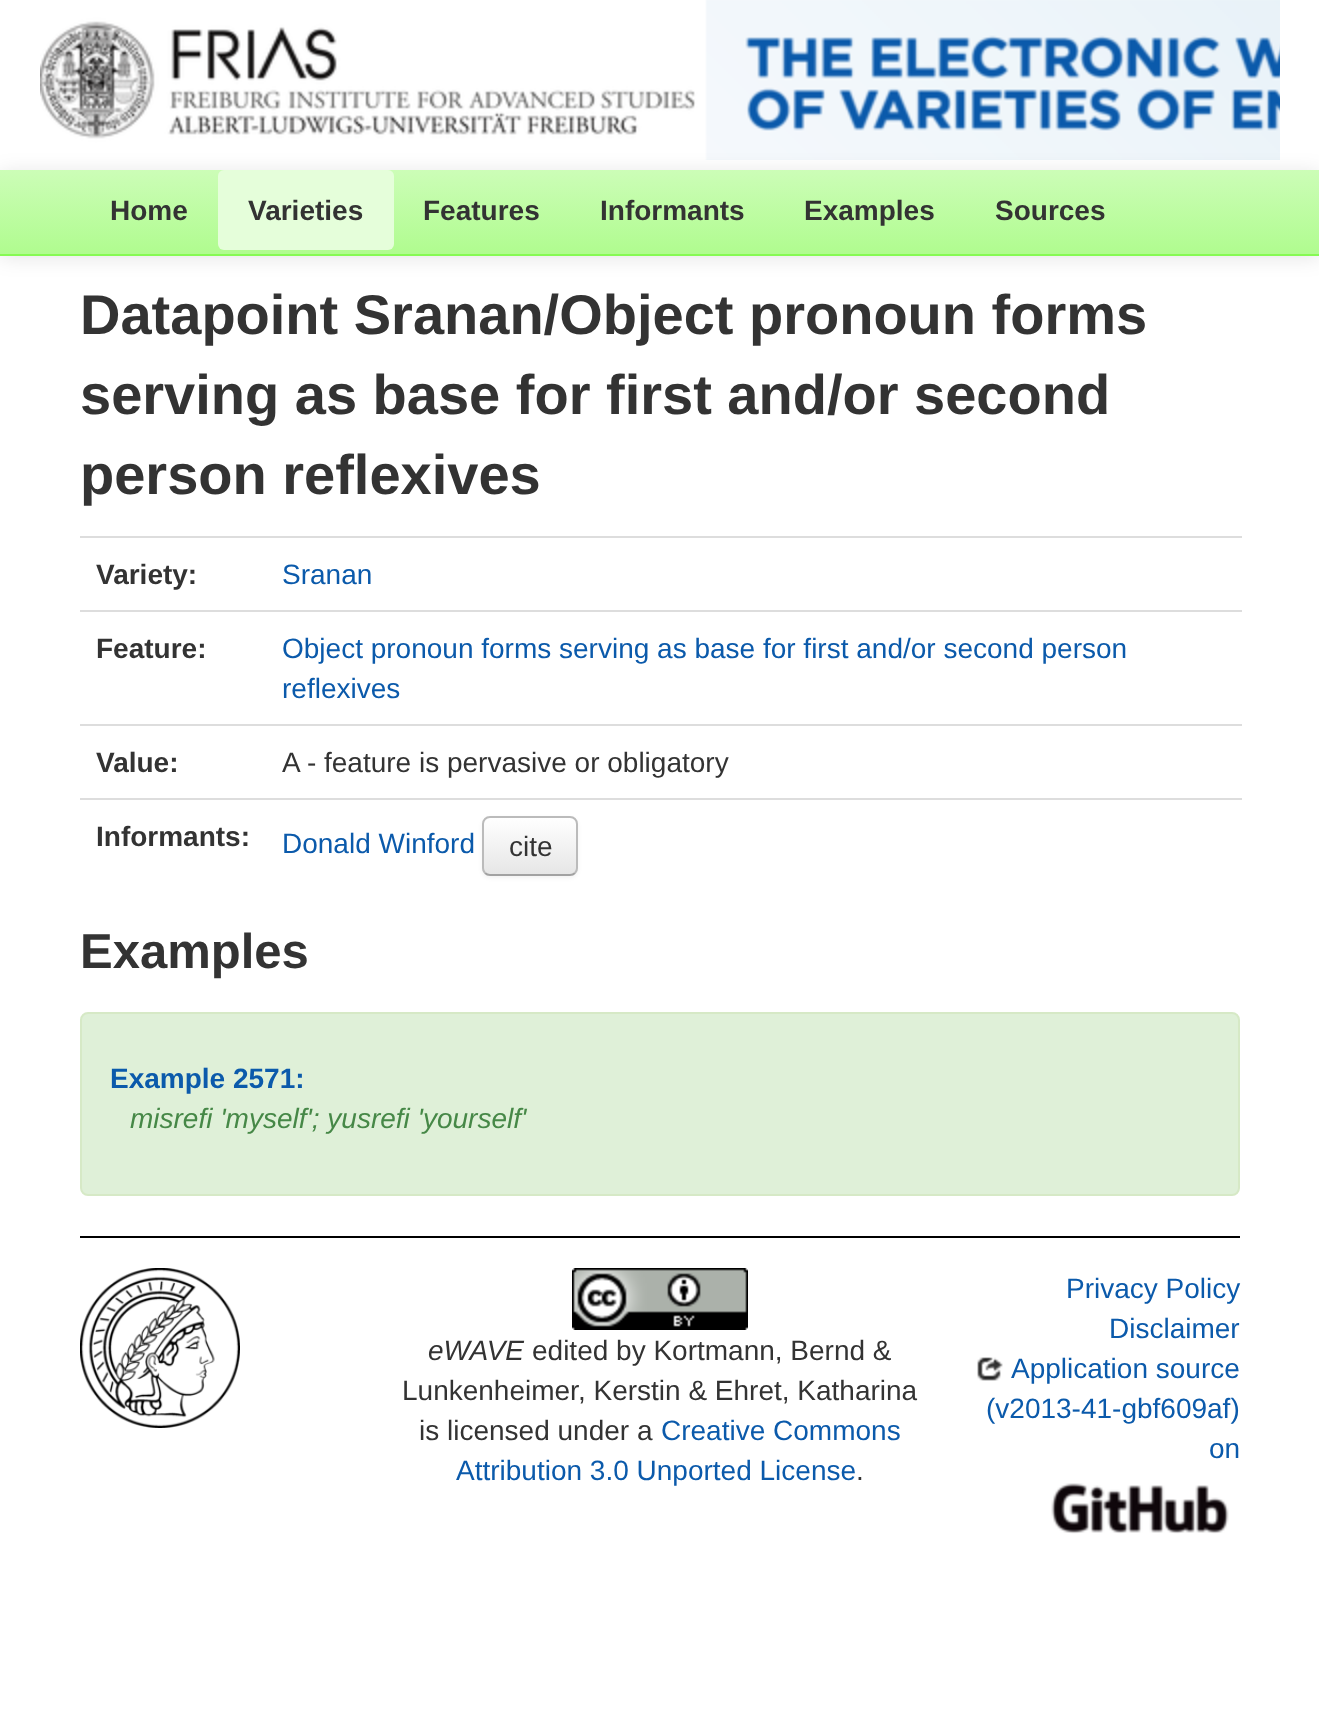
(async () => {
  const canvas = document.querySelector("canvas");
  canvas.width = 1319;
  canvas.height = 1718;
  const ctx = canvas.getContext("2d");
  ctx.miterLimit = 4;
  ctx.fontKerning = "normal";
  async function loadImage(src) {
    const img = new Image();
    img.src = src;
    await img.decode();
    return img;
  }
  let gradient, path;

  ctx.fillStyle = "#ffffff";
  ctx.fillRect(0, 0, 1319, 1718);
  ctx.drawImage(await loadImage("img/1.png"), 40, 0, 1240, 160);
  ctx.fillStyle = "rgba(0, 0, 0, 0.1)";
  ctx.filter = "blur(10px)";
  ctx.beginPath();
  ctx.rect(0, 172, 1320, 86);
  ctx.fill();
  ctx.filter = "none";
  gradient = ctx.createLinearGradient(660, 170, 660, 254);
  gradient.addColorStop(0, "#ccfdb7");
  gradient.addColorStop(1, "#b0fc8f");
  ctx.fillStyle = gradient;
  ctx.fillRect(0, 170, 1319, 84);
  ctx.fillStyle = "#86fa53";
  ctx.fillRect(0, 254, 1319, 2);
  ctx.fillStyle = "#e5feda";
  ctx.beginPath();
  ctx.roundRect(218, 170, 176, 80, 6);
  ctx.fill();
  for (const [x, y, w, h, color] of [
    [80, 536, 1162, 2, "#dddddd"],
    [80, 610, 1162, 2, "#dddddd"],
    [80, 724, 1162, 2, "#dddddd"],
    [80, 798, 1162, 2, "#dddddd"],
  ]) {
    ctx.fillStyle = color;
    ctx.fillRect(x, y, w, h);
  }
  ctx.fillStyle = "rgba(0, 0, 0, 0.05)";
  ctx.filter = "blur(2px)";
  ctx.beginPath();
  ctx.roundRect(482, 818, 96, 60, 8);
  ctx.fill();
  ctx.filter = "none";
  ctx.save();
  ctx.beginPath();
  ctx.roundRect(482, 816, 96, 60, 8);
  ctx.clip();
  gradient = ctx.createLinearGradient(530, 818, 530, 874);
  gradient.addColorStop(0, "#ffffff");
  gradient.addColorStop(1, "#e6e6e6");
  ctx.fillStyle = gradient;
  ctx.fillRect(482, 818, 96, 56);
  ctx.restore();
  path = new Path2D("M575 873C573.5 874.5 572 875 570 875H490C488 875 486.5 874.5 485 873");
  ctx.strokeStyle = "#a2a2a2";
  ctx.lineWidth = 2;
  ctx.stroke(path);
  path = new Path2D("M485 873C483.5 871.5 483 870 483 868V824C483 822 483.5 820.5 485 819C486.5 817.5 488 817 490 817H570C572 817 573.5 817.5 575 819C576.5 820.5 577 822 577 824V868C577 870 576.5 871.5 575 873");
  ctx.strokeStyle = "#bbbbbb";
  ctx.stroke(path);
  ctx.fillStyle = "#dff0d8";
  ctx.beginPath();
  ctx.roundRect(81, 1013, 1158, 182, 7);
  ctx.fill();
  ctx.strokeStyle = "#d6e9c6";
  ctx.stroke();
  ctx.fillStyle = "#000000";
  ctx.fillRect(80, 1236, 1160, 2);
  ctx.drawImage(await loadImage("img/2.png"), 80, 1268, 160, 160);
  ctx.drawImage(await loadImage("img/3.png"), 572, 1268, 176, 62);
  ctx.drawImage(await loadImage("img/4.png"), 977, 1357, 26, 24);
  ctx.drawImage(await loadImage("img/5.png"), 1051, 1483, 178, 51);
  ctx.font = "bold 28px Liberation Sans";
  ctx.fillStyle = "#333333";
  for (const [text, x, y] of [
    ["Home", 110, 220],
    ["Varieties", 248, 220],
    ["Features", 423, 220],
    ["Informants", 600, 220],
    ["Examples", 804, 220],
    ["Sources", 995, 220],
  ]) {
    ctx.fillText(text, x, y);
  }
  ctx.font = "bold 56px Liberation Sans";
  for (const [text, x, y] of [
    ["Datapoint Sranan/Object pronoun forms", 80, 334],
    ["serving as base for first and/or second", 80, 414],
    ["person reflexives", 80, 494],
  ]) {
    ctx.fillText(text, x, y);
  }
  ctx.font = "bold 28px Liberation Sans";
  ctx.fillText("Variety:", 96, 584);
  ctx.font = "28px Liberation Sans";
  ctx.fillStyle = "#0b5aab";
  ctx.fillText("Sranan", 282, 584);
  ctx.font = "bold 28px Liberation Sans";
  ctx.fillStyle = "#333333";
  ctx.fillText("Feature:", 96, 658);
  ctx.font = "28px Liberation Sans";
  ctx.fillStyle = "#0b5aab";
  ctx.fillText("Object pronoun forms serving as base for first and/or second person", 282, 658);
  ctx.fillText("reflexives", 282, 698);
  ctx.font = "bold 28px Liberation Sans";
  ctx.fillStyle = "#333333";
  ctx.fillText("Value:", 96, 772);
  ctx.font = "28px Liberation Sans";
  ctx.fillText("A - feature is pervasive or obligatory", 282, 772);
  ctx.font = "bold 28px Liberation Sans";
  ctx.fillText("Informants:", 96, 846);
  ctx.font = "28px Liberation Sans";
  ctx.fillStyle = "#0b5aab";
  ctx.fillText("Donald Winford", 282, 853);
  ctx.fillStyle = "#333333";
  ctx.fillText("cite", 509, 856);
  ctx.font = "bold 49px Liberation Sans";
  ctx.fillText("Examples", 80, 968);
  ctx.font = "bold 28px Liberation Sans";
  ctx.fillStyle = "#0b5aab";
  ctx.fillText("Example 2571:", 110, 1088);
  ctx.font = "italic 28px Liberation Sans";
  ctx.fillStyle = "#468847";
  ctx.fillText("misrefi 'myself'; yusrefi 'yourself'", 130, 1128);
  ctx.fillStyle = "#333333";
  ctx.fillText("eWAVE", 428, 1360);
  ctx.font = "28px Liberation Sans";
  for (const [text, x, y] of [
    ["edited by Kortmann, Bernd &", 532, 1360],
    ["Lunkenheimer, Kerstin & Ehret, Katharina", 402, 1400],
    ["is licensed under a", 419, 1440],
  ]) {
    ctx.fillText(text, x, y);
  }
  ctx.fillStyle = "#0b5aab";
  ctx.fillText("Creative Commons", 661, 1440);
  ctx.fillText("Attribution 3.0 Unported License", 456, 1480);
  ctx.fillStyle = "#333333";
  ctx.fillText(".", 856, 1480);
  ctx.fillStyle = "#0b5aab";
  for (const [text, x, y] of [
    ["Privacy Policy", 1066, 1298],
    ["Disclaimer", 1109, 1338],
    ["Application source", 1011, 1378],
    ["(v2013-41-gbf609af)", 986, 1418],
    ["on", 1209, 1458],
  ]) {
    ctx.fillText(text, x, y);
  }
})();
